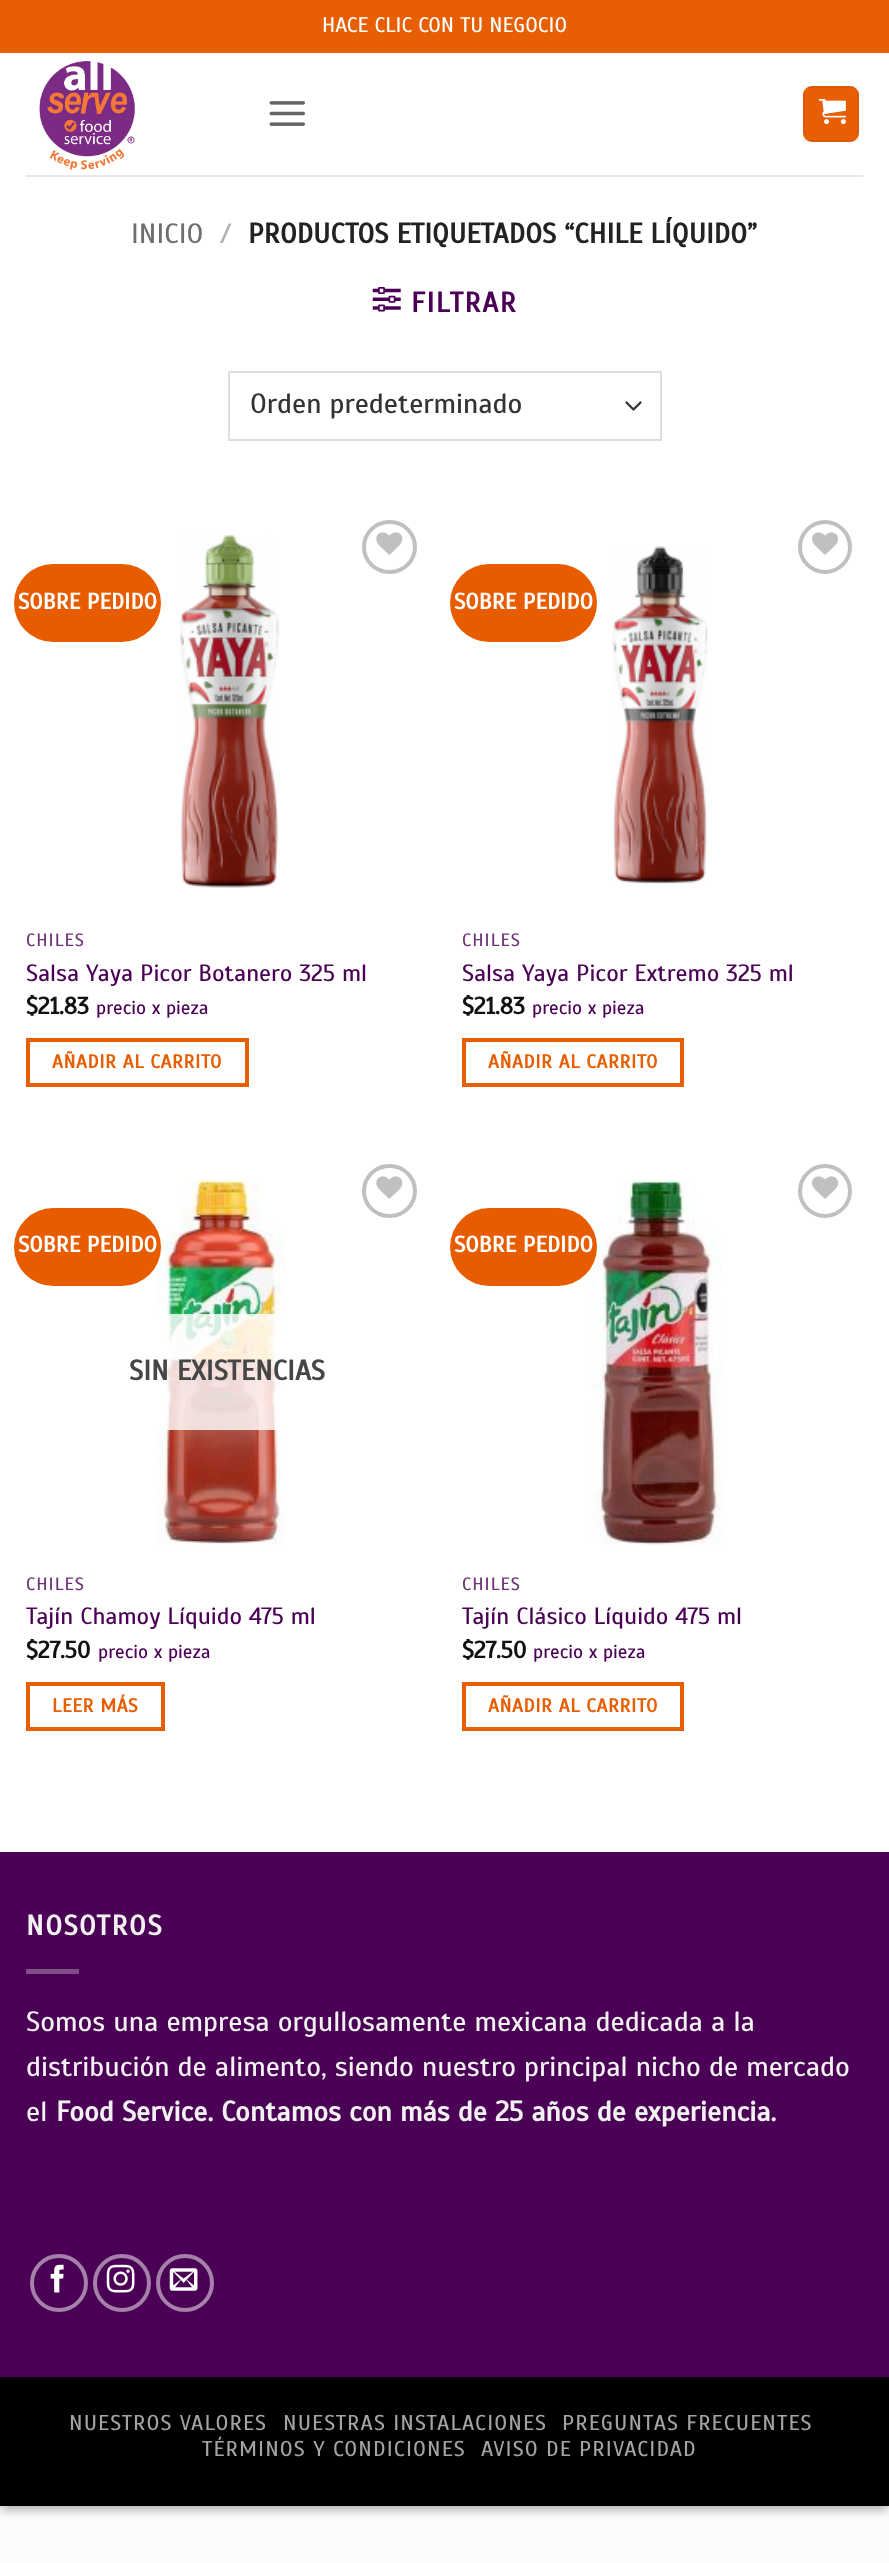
(async () => {
  const canvas = document.querySelector("canvas");
  canvas.width = 889;
  canvas.height = 2563;
  const ctx = canvas.getContext("2d");
  ctx.miterLimit = 4;
  ctx.fontKerning = "normal";
  async function loadImage(src) {
    const img = new Image();
    img.src = src;
    await img.decode();
    return img;
  }
  let path;

  ctx.fillStyle = "#fcfcfc";
  ctx.fillRect(0, 0, 889, 2563);
  ctx.fillStyle = "rgba(0, 0, 0, 0.23)";
  ctx.filter = "blur(5px)";
  ctx.beginPath();
  ctx.rect(0, 5, 889, 2506);
  ctx.fill();
  ctx.filter = "none";
  ctx.fillStyle = "rgba(0, 0, 0, 0.16)";
  ctx.filter = "blur(5px)";
  ctx.beginPath();
  ctx.rect(7, 12, 875, 2492);
  ctx.fill();
  ctx.filter = "none";
  ctx.fillStyle = "#ffffff";
  ctx.fillRect(0, 53, 889, 1799);
  ctx.fillStyle = "#e75e03";
  ctx.fillRect(0, 0, 889, 53);
  ctx.drawImage(await loadImage("img/1.png"), 39, 61, 96, 109);
  ctx.drawImage(await loadImage("img/2.png"), 269, 101, 36, 25);
  ctx.beginPath();
  ctx.roundRect(803, 86, 56, 56, 9);
  ctx.fill();
  ctx.strokeStyle = "rgba(0, 0, 0, 0.05)";
  ctx.lineWidth = 2;
  ctx.strokeRect(804, 87, 54, 54);
  ctx.drawImage(await loadImage("img/3.png"), 819, 99, 27, 26);
  ctx.fillStyle = "#ede6ee";
  ctx.fillRect(26, 175, 837, 2);
  ctx.drawImage(await loadImage("img/4.png"), 372, 287, 29, 25);
  path = new Path2D("M626.5 402.5L633.5 409.5L640.5 402.5");
  ctx.strokeStyle = "#333333";
  ctx.lineWidth = 2.3;
  ctx.lineCap = "round";
  ctx.lineJoin = "round";
  ctx.stroke(path);
  ctx.strokeStyle = "#dddddd";
  ctx.lineWidth = 2;
  ctx.lineJoin = "miter";
  ctx.strokeRect(229, 372, 432, 68);
  ctx.fillStyle = "#e85c00";
  ctx.beginPath();
  ctx.roundRect(14, 564, 147, 78, 39);
  ctx.fill();
  ctx.drawImage(await loadImage("img/5.png"), 180, 535, 100, 353);
  ctx.beginPath();
  ctx.roundRect(364, 522, 51, 50, 25);
  ctx.strokeStyle = "#c0c0c0";
  ctx.lineWidth = 4;
  ctx.stroke();
  ctx.drawImage(await loadImage("img/6.png"), 376, 532, 27, 23);
  ctx.strokeStyle = "#e75e03";
  ctx.strokeRect(28, 1040, 219, 45);
  ctx.beginPath();
  ctx.roundRect(450, 564, 147, 78, 39);
  ctx.fill();
  ctx.drawImage(await loadImage("img/7.png"), 612, 546, 96, 339);
  ctx.beginPath();
  ctx.arc(825, 547, 25, 0, Math.PI * 2);
  ctx.strokeStyle = "#c0c0c0";
  ctx.stroke();
  ctx.drawImage(await loadImage("img/8.png"), 812, 532, 26, 23);
  ctx.strokeStyle = "#e75e03";
  ctx.strokeRect(464, 1040, 218, 45);
  ctx.drawImage(await loadImage("img/9.png"), 156, 1179, 131, 366);
  ctx.beginPath();
  ctx.roundRect(14, 1208, 147, 78, 39);
  ctx.fill();
  ctx.beginPath();
  ctx.roundRect(364, 1166, 51, 50, 25);
  ctx.strokeStyle = "#c0c0c0";
  ctx.stroke();
  ctx.drawImage(await loadImage("img/6.png"), 376, 1176, 27, 23);
  ctx.fillStyle = "rgba(255, 255, 255, 0.81)";
  ctx.fillRect(156, 1314, 131, 116);
  ctx.strokeStyle = "#e75e03";
  ctx.strokeRect(28, 1684, 135, 45);
  ctx.drawImage(await loadImage("img/10.png"), 591, 1179, 131, 367);
  ctx.fillStyle = "#e85c00";
  ctx.beginPath();
  ctx.roundRect(450, 1208, 147, 78, 39);
  ctx.fill();
  ctx.beginPath();
  ctx.arc(825, 1191, 25, 0, Math.PI * 2);
  ctx.strokeStyle = "#c0c0c0";
  ctx.stroke();
  ctx.drawImage(await loadImage("img/8.png"), 812, 1176, 26, 23);
  ctx.strokeStyle = "#e75e03";
  ctx.strokeRect(464, 1684, 218, 45);
  for (const [x, y, w, h, color] of [
    [0, 1854, 889, 523, "#4a0054"],
    [0, 1852, 889, 2, "#460050"],
    [26, 1969, 53, 5, "#804d87"],
  ]) {
    ctx.fillStyle = color;
    ctx.fillRect(x, y, w, h);
  }
  ctx.beginPath();
  ctx.arc(59, 2283, 27, 0, Math.PI * 2);
  ctx.strokeStyle = "#a580aa";
  ctx.stroke();
  ctx.drawImage(await loadImage("img/11.png"), 50, 2264, 14, 29);
  ctx.beginPath();
  ctx.arc(122, 2283, 27, 0, Math.PI * 2);
  ctx.stroke();
  ctx.drawImage(await loadImage("img/12.png"), 106, 2264, 29, 29);
  ctx.beginPath();
  ctx.arc(185, 2283, 27, 0, Math.PI * 2);
  ctx.stroke();
  ctx.drawImage(await loadImage("img/13.png"), 169, 2268, 29, 23);
  ctx.fillStyle = "#000000";
  ctx.fillRect(0, 2377, 889, 129);
  ctx.font = "21px Scada";
  ctx.fillStyle = "#ffffff";
  ctx.fillText("HACE CLIC CON TU NEGOCIO", 322, 32);
  ctx.font = "28px Scada";
  ctx.fillStyle = "#6e6e6e";
  ctx.fillText("INICIO", 131, 243);
  ctx.fillStyle = "#b2b2b2";
  ctx.fillText("/", 220, 243);
  ctx.font = "bold 28px Scada";
  ctx.fillStyle = "#222222";
  ctx.fillText("PRODUCTOS ETIQUETADOS “CHILE LÍQUIDO”", 248, 243);
  ctx.letterSpacing = "1.5px";
  ctx.fillStyle = "#4a0054";
  ctx.fillText("FILTRAR", 411, 312);
  ctx.letterSpacing = "0px";
  ctx.font = "28px Scada";
  ctx.fillStyle = "#333333";
  ctx.fillText("Orden predeterminado", 250, 413);
  ctx.font = "bold 22.5px Scada";
  ctx.fillStyle = "#ffffff";
  ctx.fillText("SOBRE PEDIDO", 18, 609);
  ctx.letterSpacing = "1px";
  ctx.font = "18px Scada";
  ctx.fillStyle = "#6e3376";
  ctx.fillText("CHILES", 26, 946);
  ctx.letterSpacing = "0px";
  ctx.font = "23.75px Scada";
  ctx.fillStyle = "#4a0054";
  ctx.fillText("Salsa Yaya Picor Botanero 325 ml", 26, 981);
  ctx.font = "bold 23.75px Scada";
  ctx.fillStyle = "#111111";
  ctx.fillText("$21.83", 26, 1014);
  ctx.font = "19px Scada";
  ctx.fillStyle = "#4a0054";
  ctx.fillText("precio x pieza", 96, 1014);
  ctx.letterSpacing = "0.6px";
  ctx.font = "bold 19px Scada";
  ctx.fillStyle = "#e75e03";
  ctx.fillText("AÑADIR AL CARRITO", 52, 1068);
  ctx.letterSpacing = "0px";
  ctx.font = "bold 22.5px Scada";
  ctx.fillStyle = "#ffffff";
  ctx.fillText("SOBRE PEDIDO", 454, 609);
  ctx.letterSpacing = "1px";
  ctx.font = "18px Scada";
  ctx.fillStyle = "#6e3376";
  ctx.fillText("CHILES", 462, 946);
  ctx.letterSpacing = "0px";
  ctx.font = "23.75px Scada";
  ctx.fillStyle = "#4a0054";
  ctx.fillText("Salsa Yaya Picor Extremo 325 ml", 462, 981);
  ctx.font = "bold 23.75px Scada";
  ctx.fillStyle = "#111111";
  ctx.fillText("$21.83", 462, 1014);
  ctx.font = "19px Scada";
  ctx.fillStyle = "#4a0054";
  ctx.fillText("precio x pieza", 532, 1014);
  ctx.letterSpacing = "0.6px";
  ctx.font = "bold 19px Scada";
  ctx.fillStyle = "#e75e03";
  ctx.fillText("AÑADIR AL CARRITO", 488, 1068);
  ctx.letterSpacing = "0px";
  ctx.font = "bold 22.5px Scada";
  ctx.fillStyle = "#ffffff";
  ctx.fillText("SOBRE PEDIDO", 18, 1252);
  ctx.font = "bold 28px Scada";
  ctx.fillStyle = "#474646";
  ctx.fillText("SIN EXISTENCIAS", 129, 1380);
  ctx.letterSpacing = "1px";
  ctx.font = "18px Scada";
  ctx.fillStyle = "#6e3376";
  ctx.fillText("CHILES", 26, 1590);
  ctx.letterSpacing = "0px";
  ctx.font = "23.75px Scada";
  ctx.fillStyle = "#4a0054";
  ctx.fillText("Tajín Chamoy Líquido 475 ml", 26, 1624);
  ctx.font = "bold 23.75px Scada";
  ctx.fillStyle = "#111111";
  ctx.fillText("$27.50", 26, 1658);
  ctx.font = "19px Scada";
  ctx.fillStyle = "#4a0054";
  ctx.fillText("precio x pieza", 98, 1658);
  ctx.letterSpacing = "0.6px";
  ctx.font = "bold 19px Scada";
  ctx.fillStyle = "#e75e03";
  ctx.fillText("LEER MÁS", 52, 1712);
  ctx.letterSpacing = "0px";
  ctx.font = "bold 22.5px Scada";
  ctx.fillStyle = "#ffffff";
  ctx.fillText("SOBRE PEDIDO", 454, 1252);
  ctx.letterSpacing = "1px";
  ctx.font = "18px Scada";
  ctx.fillStyle = "#6e3376";
  ctx.fillText("CHILES", 462, 1590);
  ctx.letterSpacing = "0px";
  ctx.font = "23.75px Scada";
  ctx.fillStyle = "#4a0054";
  ctx.fillText("Tajín Clásico Líquido 475 ml", 462, 1624);
  ctx.font = "bold 23.75px Scada";
  ctx.fillStyle = "#111111";
  ctx.fillText("$27.50", 462, 1658);
  ctx.font = "19px Scada";
  ctx.fillStyle = "#4a0054";
  ctx.fillText("precio x pieza", 533, 1658);
  ctx.letterSpacing = "0.6px";
  ctx.font = "bold 19px Scada";
  ctx.fillStyle = "#e75e03";
  ctx.fillText("AÑADIR AL CARRITO", 488, 1712);
  ctx.letterSpacing = "1.5px";
  ctx.font = "bold 28px Scada";
  ctx.fillStyle = "#f1f1f1";
  ctx.fillText("NOSOTROS", 26, 1935);
  ctx.letterSpacing = "0px";
  ctx.font = "28px Scada";
  for (const [text, x, y] of [
    ["Somos una empresa orgullosamente mexicana dedicada a la", 26, 2031],
    ["distribución de alimento, siendo nuestro principal nicho de mercado", 26, 2076],
    ["el", 26, 2121],
  ]) {
    ctx.fillText(text, x, y);
  }
  ctx.font = "bold 28px Scada";
  ctx.fillText("Food Service. Contamos con más de 25 años de experiencia.", 56, 2121);
  ctx.letterSpacing = "1.1px";
  ctx.font = "21.5px Scada";
  ctx.fillStyle = "#a3a3a3";
  for (const [text, x, y] of [
    ["NUESTROS VALORES", 69, 2430],
    ["NUESTRAS INSTALACIONES", 283, 2430],
    ["PREGUNTAS FRECUENTES", 562, 2430],
    ["TÉRMINOS Y CONDICIONES", 202, 2456],
    ["AVISO DE PRIVACIDAD", 481, 2456],
  ]) {
    ctx.fillText(text, x, y);
  }
})();
